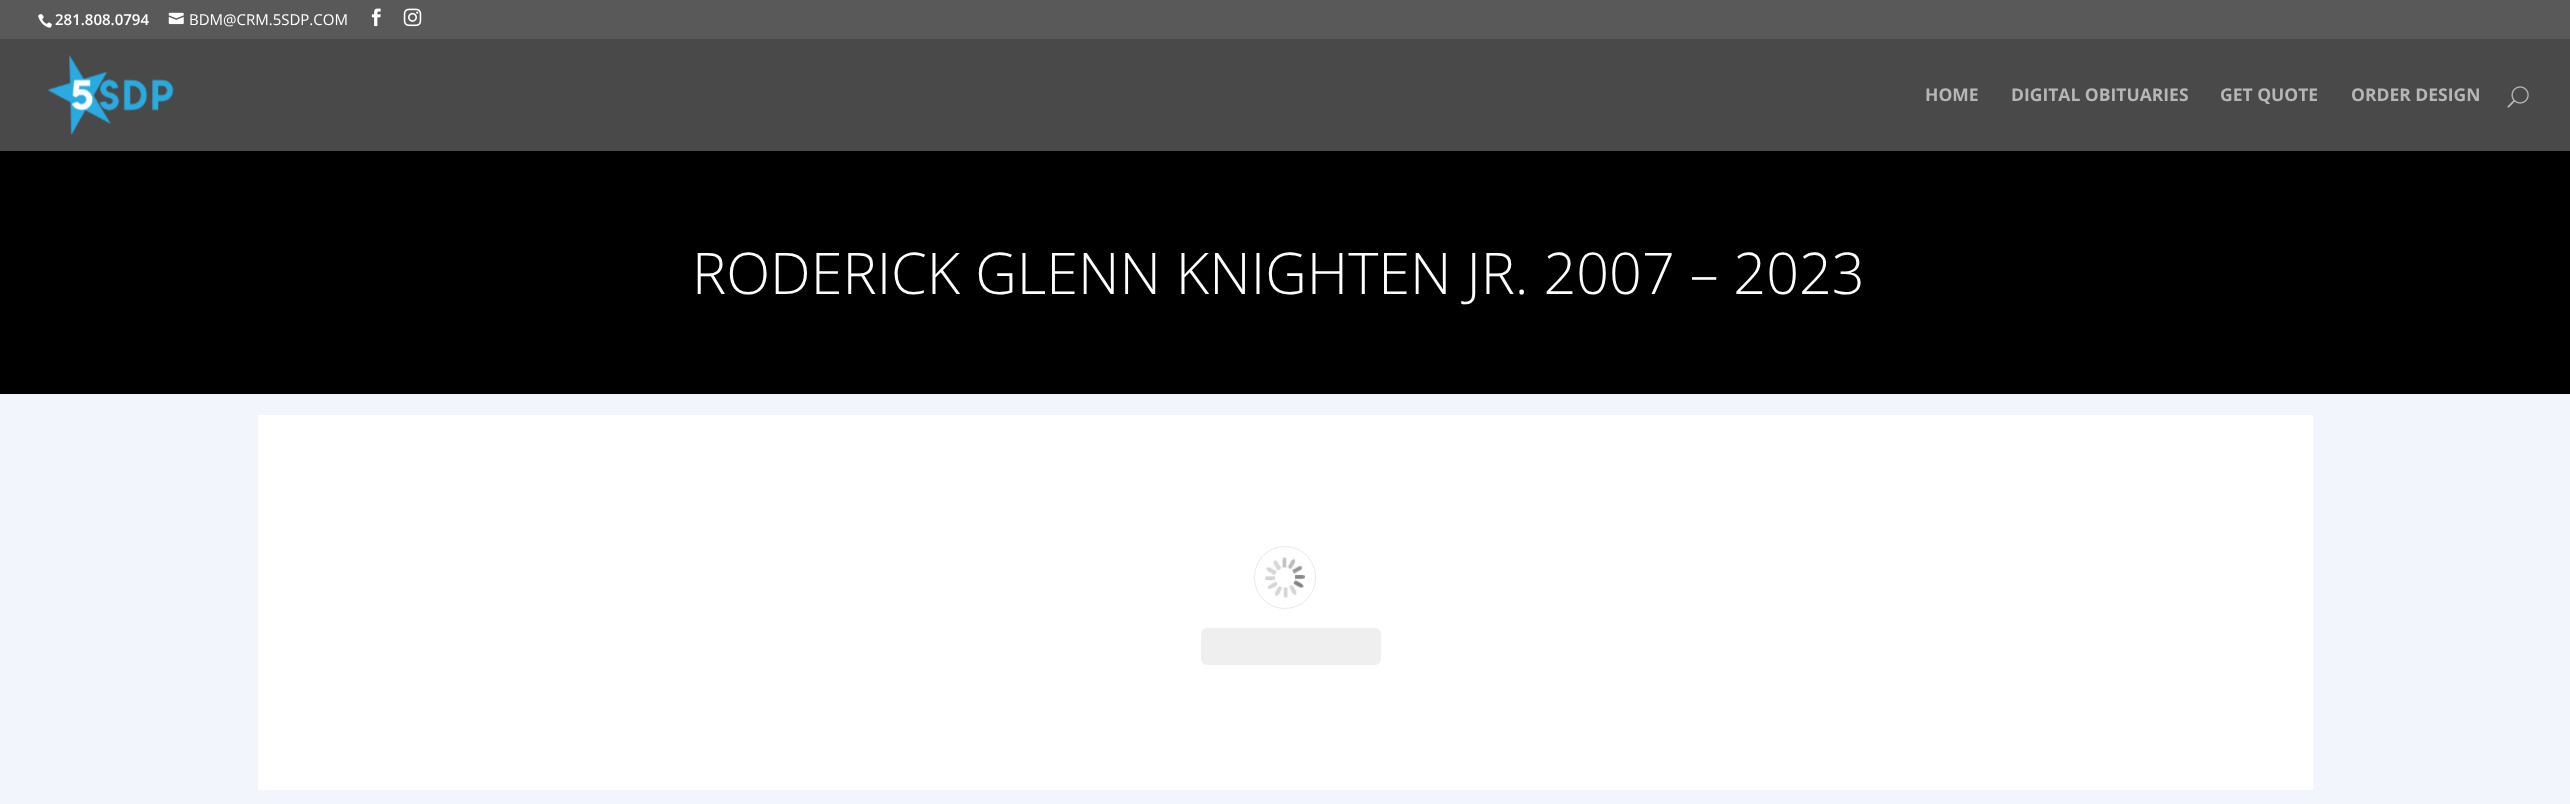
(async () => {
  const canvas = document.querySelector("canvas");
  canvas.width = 2570;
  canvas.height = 804;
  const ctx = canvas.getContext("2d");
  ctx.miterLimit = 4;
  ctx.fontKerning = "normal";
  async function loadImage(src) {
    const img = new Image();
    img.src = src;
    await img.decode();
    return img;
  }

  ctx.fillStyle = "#000000";
  ctx.fillRect(0, 0, 2570, 804);
  ctx.fillStyle = "#595959";
  ctx.fillRect(0, 0, 2570, 39);
  ctx.drawImage(await loadImage("img/1.png"), 38, 14, 14, 14);
  ctx.drawImage(await loadImage("img/2.png"), 168, 12, 16, 13);
  ctx.drawImage(await loadImage("img/3.png"), 371, 8, 10, 19);
  ctx.drawImage(await loadImage("img/4.png"), 403, 8, 19, 19);
  ctx.fillStyle = "#494949";
  ctx.fillRect(0, 39, 2570, 112);
  ctx.drawImage(await loadImage("img/5.png"), 47, 55, 127, 81);
  ctx.drawImage(await loadImage("img/6.png"), 2507, 86, 22, 22);
  ctx.fillStyle = "#f2f6fc";
  ctx.fillRect(0, 394, 2570, 410);
  ctx.fillStyle = "#ffffff";
  ctx.fillRect(258, 415, 2055, 375);
  ctx.beginPath();
  ctx.roundRect(1254.5, 546.5, 61, 62, 30.5);
  ctx.strokeStyle = "#eaeaea";
  ctx.stroke();
  ctx.drawImage(await loadImage("img/7.png"), 1265, 557, 40, 41);
  ctx.fillStyle = "#efefef";
  ctx.beginPath();
  ctx.roundRect(1201, 628, 180, 37, 6);
  ctx.fill();
  ctx.font = "600 15px Open Sans";
  ctx.fillStyle = "#ffffff";
  ctx.fillText("281.808.0794", 55, 25);
  ctx.font = "15px Open Sans";
  ctx.fillText("BDM@CRM.5SDP.COM", 189, 25);
  ctx.font = "bold 17.5px Open Sans";
  ctx.fillStyle = "#b6b6b6";
  for (const [text, x, y] of [
    ["HOME", 1925, 101],
    ["DIGITAL OBITUARIES", 2011, 101],
    ["GET QUOTE", 2220, 101],
    ["ORDER DESIGN", 2351, 101],
  ]) {
    ctx.fillText(text, x, y);
  }
  ctx.font = "300 57.5px Open Sans";
  ctx.fillStyle = "#ffffff";
  ctx.fillText("RODERICK GLENN KNIGHTEN JR. 2007 – 2023", 692, 294);
})();
